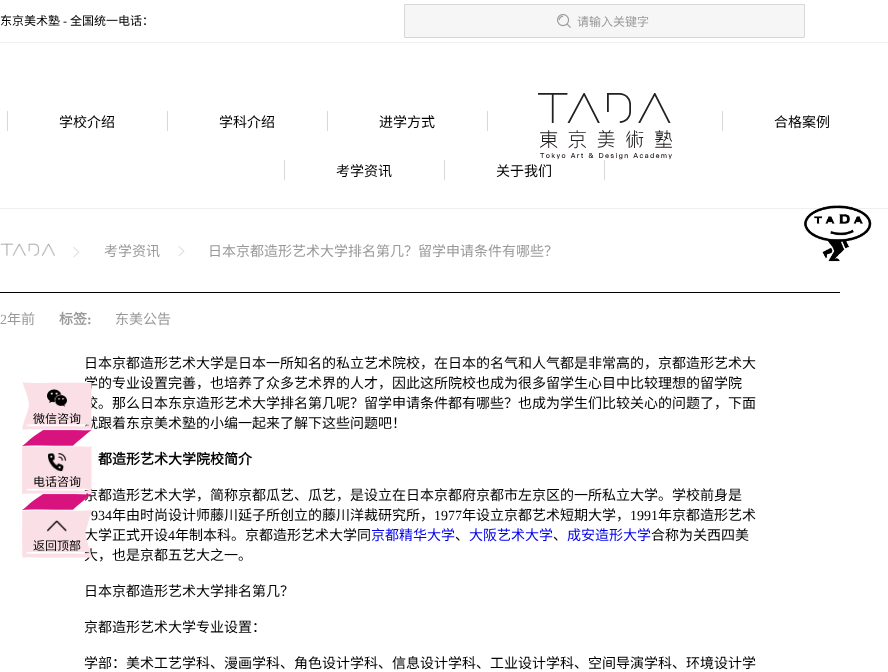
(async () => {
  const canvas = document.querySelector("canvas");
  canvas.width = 888;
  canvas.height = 672;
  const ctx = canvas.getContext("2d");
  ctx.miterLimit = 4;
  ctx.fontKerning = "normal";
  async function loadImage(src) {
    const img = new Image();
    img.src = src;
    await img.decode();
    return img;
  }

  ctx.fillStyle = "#ffffff";
  ctx.fillRect(0, 0, 888, 672);
  ctx.fillStyle = "#efefef";
  ctx.fillRect(0, 42, 888, 1);
  ctx.fillStyle = "#f6f6f6";
  ctx.beginPath();
  ctx.rect(404.5, 4.5, 400, 33);
  ctx.fill();
  ctx.strokeStyle = "#d8d8d8";
  ctx.stroke();
  ctx.drawImage(await loadImage("img/1.png"), 557, 14, 14, 14);
  for (const [x, y, w, h, color] of [
    [7, 111, 1, 20, "#d8d8d8"],
    [167, 111, 1, 20, "#d8d8d8"],
    [487, 111, 1, 20, "#d8d8d8"],
    [327, 111, 1, 20, "#d8d8d8"],
  ]) {
    ctx.fillStyle = color;
    ctx.fillRect(x, y, w, h);
  }
  ctx.drawImage(await loadImage("img/2.png"), 538, 93, 134, 67);
  for (const [x, y, w, h, color] of [
    [722, 111, 1, 20, "#d8d8d8"],
    [284, 160, 1, 20, "#d8d8d8"],
    [604, 160, 1, 20, "#d8d8d8"],
    [444, 160, 1, 20, "#d8d8d8"],
    [0, 208, 888, 1, "#efefef"],
  ]) {
    ctx.fillStyle = color;
    ctx.fillRect(x, y, w, h);
  }
  ctx.drawImage(await loadImage("img/3.png"), 803, 205, 69, 57);
  ctx.fillStyle = "#000000";
  ctx.fillRect(0, 292, 840, 1);
  ctx.drawImage(await loadImage("img/4.png"), 73, 247, 7, 11);
  ctx.drawImage(await loadImage("img/5.png"), 0, 243, 55, 13);
  ctx.drawImage(await loadImage("img/6.png"), 178, 246, 7, 11);
  ctx.drawImage(await loadImage("img/9.png"), 22, 430, 70, 16);
  ctx.font = "12px Noto Sans CJK SC";
  ctx.fillText("东京美术塾", 0, 25);
  ctx.font = "12px Liberation Serif";
  ctx.fillText("-", 63, 25);
  ctx.font = "12px Noto Sans CJK SC";
  ctx.fillText("全国统一电话：", 70, 25);
  ctx.fillStyle = "#999999";
  ctx.fillText("请输入关键字", 577, 26);
  ctx.font = "14px Noto Sans CJK SC";
  ctx.fillStyle = "#000000";
  for (const [text, x, y] of [
    ["学校介绍", 59, 127],
    ["学科介绍", 219, 127],
    ["进学方式", 379, 127],
    ["合格案例", 774, 127],
    ["考学资讯", 336, 176],
    ["关于我们", 496, 176],
  ]) {
    ctx.fillText(text, x, y);
  }
  ctx.fillStyle = "#999999";
  ctx.fillText("考学资讯", 104, 256);
  ctx.fillText("日本京都造形艺术大学排名第几？留学申请条件有哪些？", 208, 256);
  ctx.font = "14px Liberation Serif";
  ctx.fillText("2", 0, 324);
  ctx.font = "14px Noto Sans CJK SC";
  ctx.fillText("年前", 7, 324);
  ctx.font = "bold 14px Noto Sans CJK SC";
  ctx.fillText("标签", 59, 324);
  ctx.font = "bold 14px Liberation Serif";
  ctx.fillText(":", 87, 324);
  ctx.font = "14px Noto Sans CJK SC";
  ctx.fillText("东美公告", 115, 324);
  ctx.fillStyle = "#000000";
  for (const [text, x, y] of [
    ["日本京都造形艺术大学是日本一所知名的私立艺术院校，在日本的名气和人气都是非常高的，京都造形艺术大", 84, 368],
    ["学的专业设置完善，也培养了众多艺术界的人才，因此这所院校也成为很多留学生心目中比较理想的留学院", 84, 388],
    ["校。那么日本东京造形艺术大学排名第几呢？留学申请条件都有哪些？也成为学生们比较关心的问题了，下面", 84, 408],
    ["就跟着东京美术塾的小编一起来了解下这些问题吧！", 84, 428],
  ]) {
    ctx.fillText(text, x, y);
  }
  ctx.font = "bold 14px Noto Sans CJK SC";
  ctx.fillText("都造形艺术大学院校简介", 98, 464);
  ctx.font = "14px Noto Sans CJK SC";
  ctx.fillText("京都造形艺术大学，简称京都瓜艺、瓜艺，是设立在日本京都府京都市左京区的一所私立大学。学校前身是", 84, 500);
  ctx.font = "14px Liberation Serif";
  ctx.fillText("934", 91, 520);
  ctx.font = "14px Noto Sans CJK SC";
  ctx.fillText("年由时尚设计师藤川延子所创立的藤川洋裁研究所，", 112, 520);
  ctx.font = "14px Liberation Serif";
  ctx.fillText("1977", 434, 520);
  ctx.font = "14px Noto Sans CJK SC";
  ctx.fillText("年设立京都艺术短期大学，", 462, 520);
  ctx.font = "14px Liberation Serif";
  ctx.fillText("1991", 630, 520);
  ctx.font = "14px Noto Sans CJK SC";
  ctx.fillText("年京都造形艺术", 658, 520);
  ctx.fillText("大学正式开设", 84, 540);
  ctx.font = "14px Liberation Serif";
  ctx.fillText("4", 168, 540);
  ctx.font = "14px Noto Sans CJK SC";
  ctx.fillText("年制本科。京都造形艺术大学同", 175, 540);
  ctx.fillStyle = "#0000ee";
  ctx.fillText("京都精华大学", 371, 540);
  ctx.fillStyle = "#000000";
  ctx.fillText("、", 455, 540);
  ctx.fillStyle = "#0000ee";
  ctx.fillText("大阪艺术大学", 469, 540);
  ctx.fillStyle = "#000000";
  ctx.fillText("、", 553, 540);
  ctx.fillStyle = "#0000ee";
  ctx.fillText("成安造形大学", 567, 540);
  ctx.fillStyle = "#000000";
  for (const [text, x, y] of [
    ["合称为关西四美", 651, 540],
    ["大，也是京都五艺大之一。", 84, 560],
    ["日本京都造形艺术大学排名第几？", 84, 596],
    ["京都造形艺术大学专业设置：", 84, 632],
    ["学部：美术工艺学科、漫画学科、角色设计学科、信息设计学科、工业设计学科、空间导演学科、环境设计学", 84, 668],
  ]) {
    ctx.fillText(text, x, y);
  }
  ctx.drawImage(await loadImage("img/7.png"), 22, 382, 70, 48);
  ctx.drawImage(await loadImage("img/8.png"), 47, 389, 20, 18);
  ctx.font = "12px Noto Sans CJK SC";
  ctx.fillText("微信咨询", 33, 423);
  ctx.drawImage(await loadImage("img/10.png"), 22, 446, 70, 48);
  ctx.drawImage(await loadImage("img/11.png"), 48, 453, 19, 19);
  ctx.fillText("电话咨询", 33, 486);
  ctx.drawImage(await loadImage("img/12.png"), 22, 494, 70, 16);
  ctx.drawImage(await loadImage("img/13.png"), 22, 510, 70, 48);
  ctx.drawImage(await loadImage("img/14.png"), 47, 520, 20, 12);
  ctx.fillText("返回顶部", 33, 550);
})();
